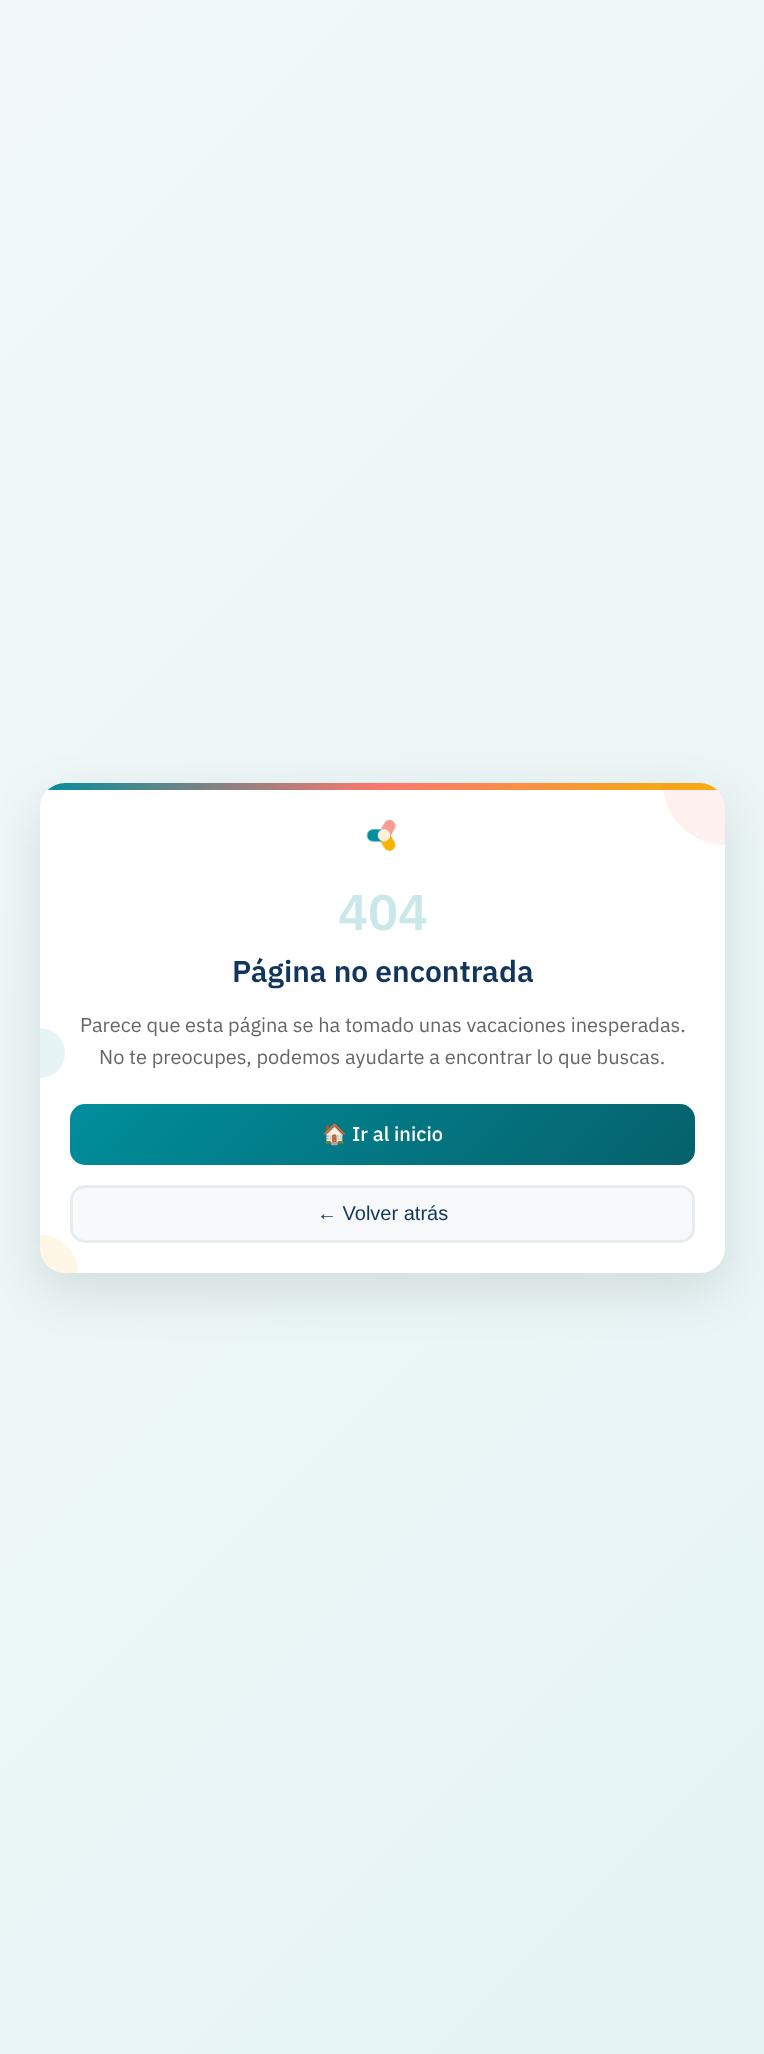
(async () => {
  const canvas = document.querySelector("canvas");
  canvas.width = 764;
  canvas.height = 2054;
  const ctx = canvas.getContext("2d");
  ctx.miterLimit = 4;
  ctx.fontKerning = "normal";
  async function loadImage(src) {
    const img = new Image();
    img.src = src;
    await img.decode();
    return img;
  }
  let gradient;

  ctx.fillStyle = "#ffffff";
  ctx.fillRect(0, 0, 764, 2054);
  gradient = ctx.createLinearGradient(-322, 323, 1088, 1733);
  gradient.addColorStop(0, "#f2f8f9");
  gradient.addColorStop(1, "#e6f4f5");
  ctx.fillStyle = gradient;
  ctx.fillRect(0, 0, 764, 2054);
  ctx.fillStyle = "rgba(0, 0, 0, 0.1)";
  ctx.filter = "blur(25px)";
  ctx.beginPath();
  ctx.roundRect(40, 801, 685, 490, 25);
  ctx.fill();
  ctx.filter = "none";
  ctx.fillStyle = "#ffffff";
  ctx.beginPath();
  ctx.roundRect(40, 783, 685, 490, 25);
  ctx.fill();
  ctx.save();
  ctx.beginPath();
  ctx.roundRect(40, 783, 685, 490, 25);
  ctx.clip();
  gradient = ctx.createLinearGradient(40, 786, 725, 786);
  gradient.addColorStop(0, "#008e9c");
  gradient.addColorStop(0.5, "#ff776d");
  gradient.addColorStop(1, "#f8b205");
  ctx.fillStyle = gradient;
  ctx.fillRect(40, 783, 685, 7);
  ctx.restore();
  ctx.drawImage(await loadImage("img/1.png"), 366, 819, 30, 32);
  ctx.fillStyle = "rgba(255, 119, 109, 0.1)";
  ctx.beginPath();
  ctx.roundRect(663, 783, 62, 62, [0, 25, 0, 62.5]);
  ctx.fill();
  ctx.fillStyle = "#e6f4f5";
  ctx.beginPath();
  ctx.roundRect(40, 1028, 25, 50, [0, 25, 25, 0]);
  ctx.fill();
  gradient = ctx.createLinearGradient(211, 963, 554, 1306);
  gradient.addColorStop(0, "#008e9c");
  gradient.addColorStop(1, "#06616b");
  ctx.fillStyle = gradient;
  ctx.beginPath();
  ctx.roundRect(70, 1104, 625, 61, 15);
  ctx.fill();
  ctx.fillStyle = "#f8f9fa";
  ctx.beginPath();
  ctx.roundRect(71.5, 1186.5, 622, 55, 13.5);
  ctx.fill();
  ctx.strokeStyle = "#e9ecef";
  ctx.lineWidth = 3;
  ctx.stroke();
  ctx.save();
  ctx.beginPath();
  ctx.roundRect(40, 783, 685, 490, 25);
  ctx.clip();
  ctx.fillStyle = "rgba(248, 178, 5, 0.1)";
  ctx.beginPath();
  ctx.arc(40.5, 1272.5, 37.5, 0, Math.PI * 2);
  ctx.fill();
  ctx.restore();
  ctx.font = "600 50px IBM Plex Sans";
  ctx.fillStyle = "#cae7ea";
  ctx.fillText("404", 338, 930);
  ctx.font = "600 30px IBM Plex Sans";
  ctx.fillStyle = "#12365b";
  ctx.fillText("Página no encontrada", 232, 982);
  ctx.font = "20px IBM Plex Sans";
  ctx.fillStyle = "#666666";
  ctx.fillText("Parece que esta página se ha tomado unas vacaciones inesperadas.", 80, 1032);
  ctx.fillText("No te preocupes, podemos ayudarte a encontrar lo que buscas.", 99, 1064);
  ctx.font = "20px Noto Color Emoji";
  ctx.fillStyle = "#ffffff";
  ctx.fillText("🏠", 322, 1141);
  ctx.font = "500 20px IBM Plex Sans";
  ctx.fillText("Ir al inicio", 352, 1141);
  ctx.font = "20px Liberation Sans";
  ctx.fillStyle = "#12365b";
  ctx.fillText("← Volver atrás", 317, 1220);
})();
